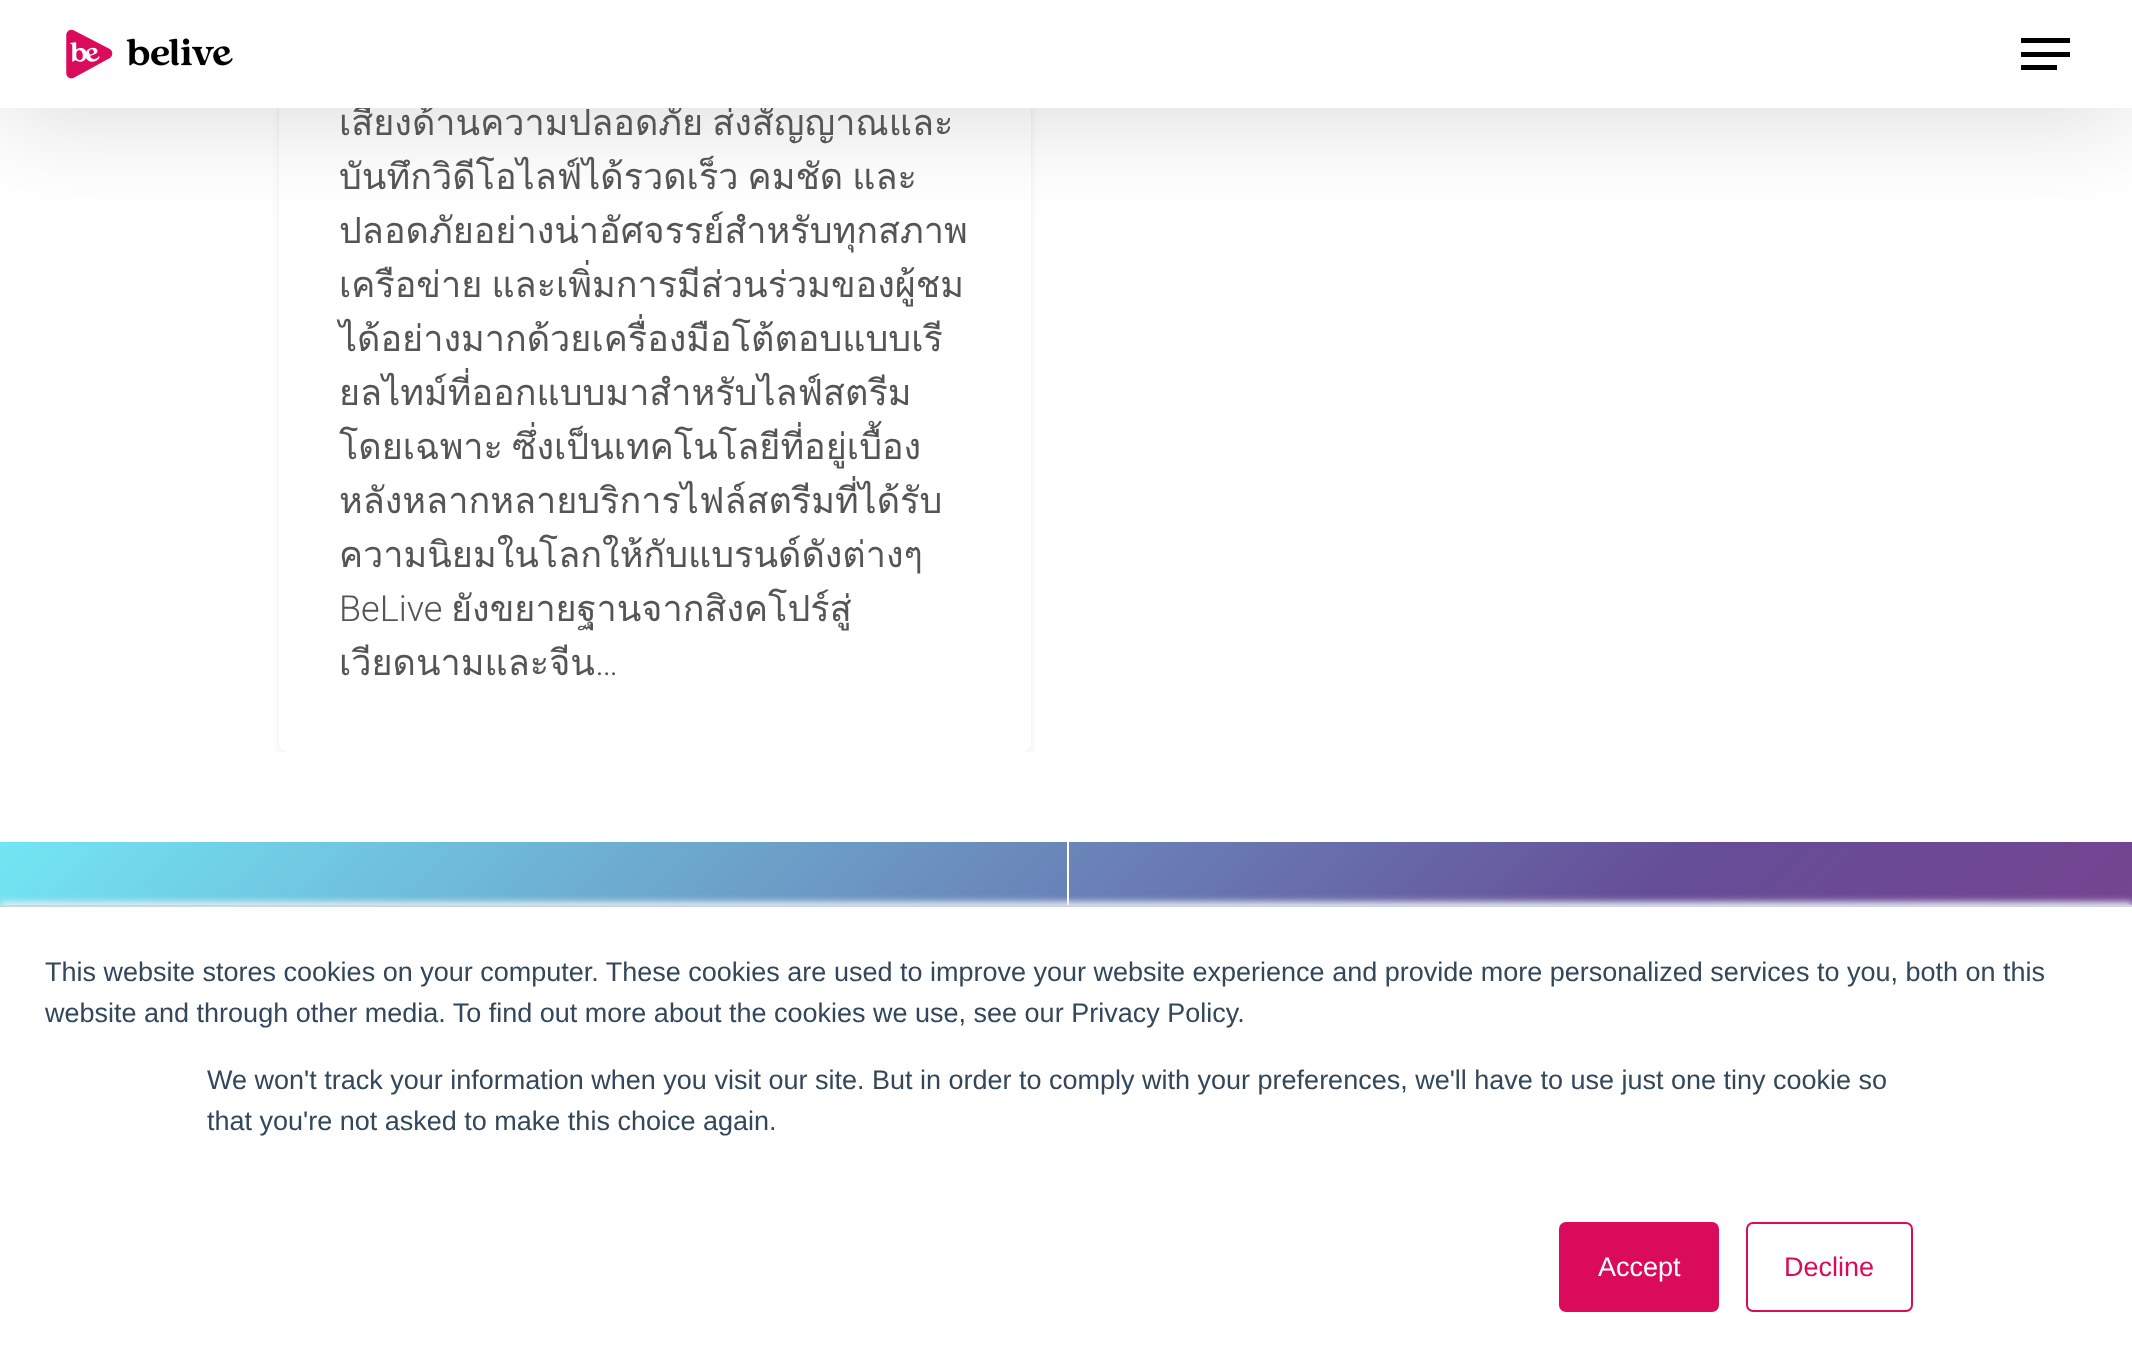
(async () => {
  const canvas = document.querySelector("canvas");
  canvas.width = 2132;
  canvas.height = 1370;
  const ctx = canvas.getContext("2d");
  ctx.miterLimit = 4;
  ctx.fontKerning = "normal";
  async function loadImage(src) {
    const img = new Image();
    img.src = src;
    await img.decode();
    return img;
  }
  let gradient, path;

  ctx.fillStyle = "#ffffff";
  ctx.fillRect(0, 0, 2132, 1370);
  ctx.fillStyle = "rgba(0, 0, 0, 0.08)";
  ctx.filter = "blur(3.5px)";
  ctx.beginPath();
  ctx.roundRect(279, -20, 752, 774, 9);
  ctx.fill();
  ctx.filter = "none";
  ctx.fillStyle = "#ffffff";
  path = new Path2D("M279-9H1031V743C1031 748 1027 752 1022 752H288C283 752 279 748 279 743Z");
  ctx.fill(path);
  ctx.fillStyle = "rgba(0, 0, 0, 0.15)";
  ctx.filter = "blur(50.5px)";
  ctx.beginPath();
  ctx.rect(0, 7, 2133, 108);
  ctx.fill();
  ctx.filter = "none";
  ctx.fillStyle = "#ffffff";
  ctx.fillRect(278, 752, 754, 6);
  gradient = ctx.createLinearGradient(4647, 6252, -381, 1223);
  gradient.addColorStop(0, "#72e6f3");
  gradient.addColorStop(0.17, "#654d97");
  gradient.addColorStop(0.33, "#972f80");
  gradient.addColorStop(0.5, "#e6005e");
  gradient.addColorStop(0.67, "#972f80");
  gradient.addColorStop(0.83, "#654d97");
  gradient.addColorStop(1, "#72e6f3");
  ctx.fillStyle = gradient;
  ctx.fillRect(0, 842, 2132, 63);
  ctx.fillStyle = "#ffffff";
  ctx.fillRect(1067, 842, 2, 63);
  ctx.fillStyle = "#eaf0f6";
  ctx.filter = "blur(3.5px)";
  ctx.beginPath();
  ctx.rect(0, 902, 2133, 466);
  ctx.fill();
  ctx.filter = "none";
  ctx.fillStyle = "#ffffff";
  ctx.fillRect(0, 907, 2132, 463);
  ctx.fillStyle = "#cbd6e2";
  ctx.fillRect(0, 905, 2132, 2);
  ctx.fillStyle = "#db0b5b";
  ctx.beginPath();
  ctx.roundRect(1560, 1223, 158, 88, 6);
  ctx.fill();
  ctx.strokeStyle = "#db0b5b";
  ctx.lineWidth = 2;
  ctx.stroke();
  ctx.beginPath();
  ctx.roundRect(1747, 1223, 165, 88, 6);
  ctx.stroke();
  ctx.wordSpacing = "-3px";
  ctx.font = "36px Loma";
  ctx.fillStyle = "#555555";
  ctx.fillText("เสี่ยงด้านความปลอดภัย ส่งสัญญาณและ", 339, 135);
  for (const [x, y, w, h, color] of [
    [0, 0, 2132, 108, "#ffffff"],
    [2021, 52, 49, 5, "#000000"],
    [2021, 38, 49, 5, "#000000"],
    [2021, 65, 36, 5, "#000000"],
  ]) {
    ctx.fillStyle = color;
    ctx.fillRect(x, y, w, h);
  }
  ctx.drawImage(await loadImage("img/1.png"), 66, 29, 167, 50);
  ctx.fillStyle = "#555555";
  ctx.fillText("บันทึกวิดีโอไลฟ์ได้รวดเร็ว คมชัด และ", 339, 189);
  ctx.wordSpacing = "0px";
  ctx.fillText("ปลอดภัยอย่างน่าอัศจรรย์สำหรับทุกสภาพ", 339, 243);
  ctx.wordSpacing = "-3px";
  ctx.fillText("เครือข่าย และเพิ่มการมีส่วนร่วมของผู้ชม", 339, 297);
  ctx.wordSpacing = "0px";
  ctx.fillText("ได้อย่างมากด้วยเครื่องมือโต้ตอบแบบเรี", 339, 351);
  ctx.fillText("ยลไทม์ที่ออกแบบมาสำหรับไลฟ์สตรีม", 339, 405);
  ctx.wordSpacing = "-3px";
  ctx.fillText("โดยเฉพาะ ซึ่งเป็นเทคโนโลยีที่อยู่เบื้อง", 339, 459);
  ctx.wordSpacing = "0px";
  ctx.fillText("หลังหลากหลายบริการไฟล์สตรีมที่ได้รับ", 339, 513);
  ctx.fillText("ความนิยมในโลกให้กับแบรนด์ดังต่างๆ", 339, 567);
  ctx.font = "300 36px Roboto";
  ctx.fillText("BeLive", 339, 621);
  ctx.font = "36px Loma";
  ctx.fillText("ยังขยายฐานจากสิงคโปร์สู่", 451, 621);
  ctx.fillText("เวียดนามและจีน", 339, 675);
  ctx.font = "300 36px Roboto";
  ctx.fillText("…", 595, 675);
  ctx.font = "27px Liberation Sans";
  ctx.fillStyle = "#33475b";
  for (const [text, x, y] of [
    ["This website stores cookies on your computer. These cookies are used to improve your website experience and provide more personalized services to you, both on this", 45, 981],
    ["website and through other media. To find out more about the cookies we use, see our Privacy Policy.", 45, 1022],
    ["We won't track your information when you visit our site. But in order to comply with your preferences, we'll have to use just one tiny cookie so", 207, 1089],
    ["that you're not asked to make this choice again.", 207, 1130],
  ]) {
    ctx.fillText(text, x, y);
  }
  ctx.fillStyle = "#ffffff";
  ctx.fillText("Accept", 1598, 1276);
  ctx.fillStyle = "#db0b5b";
  ctx.fillText("Decline", 1784, 1276);
})();
